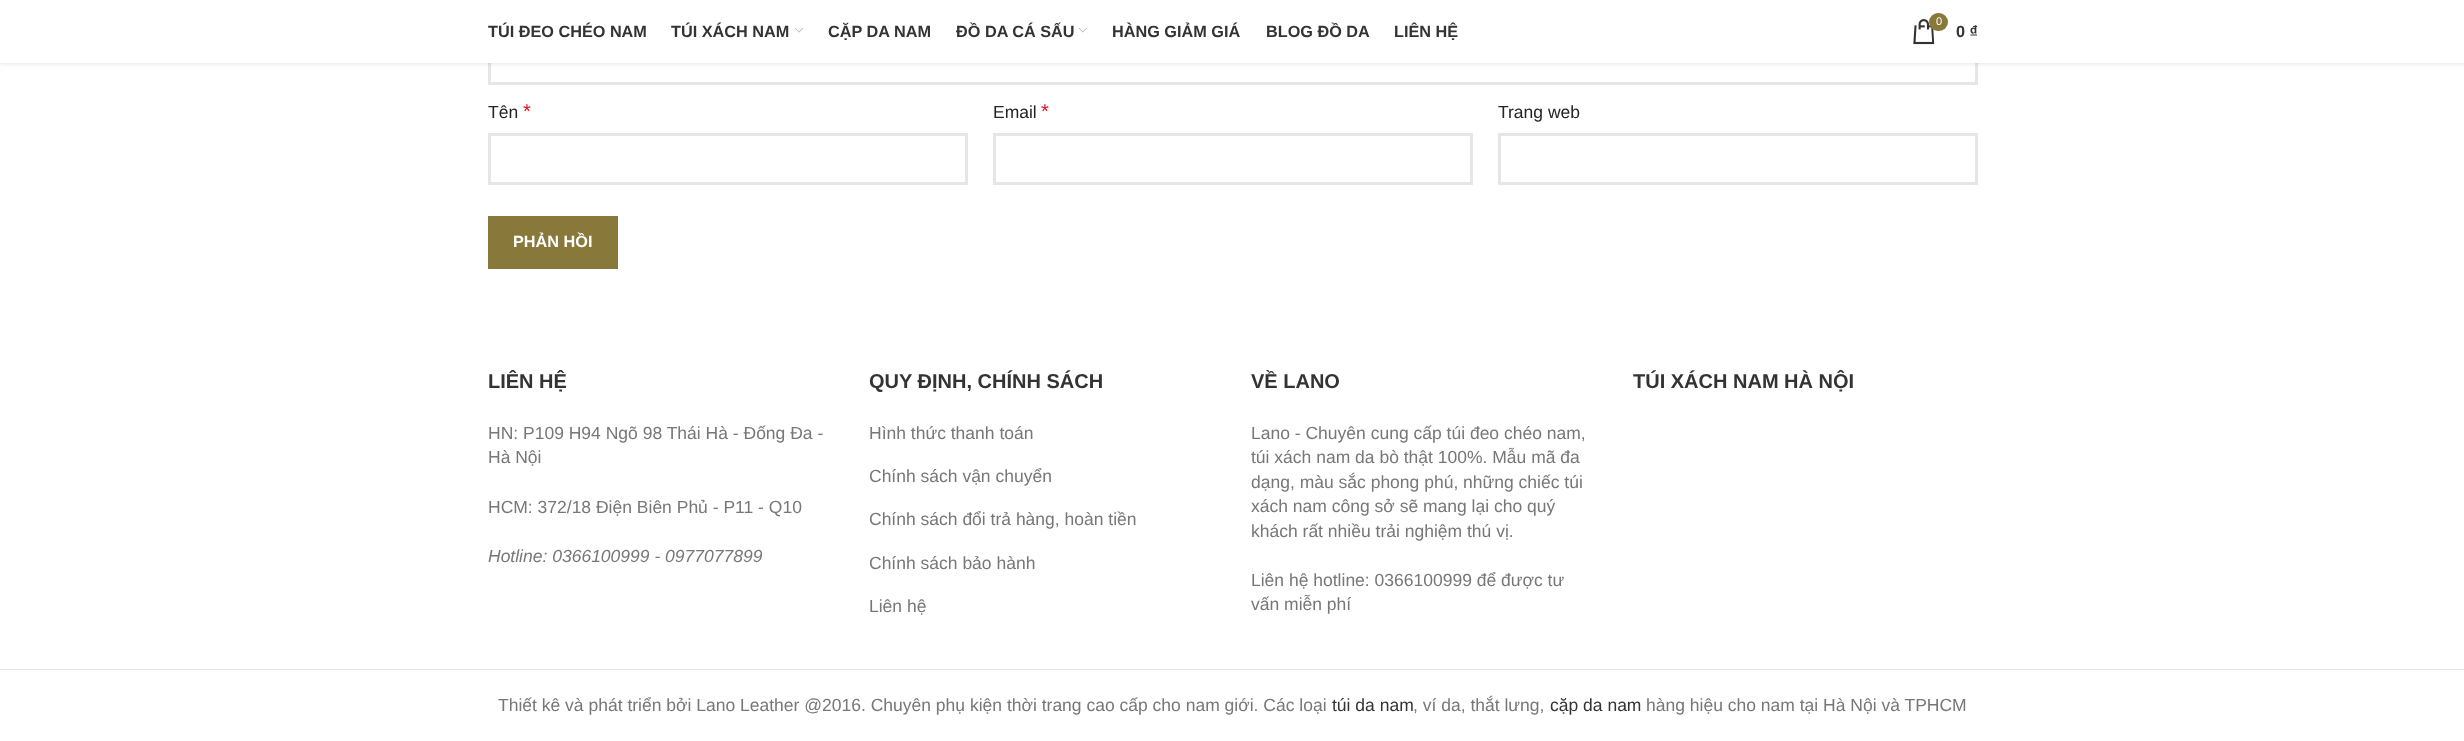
(async () => {
  const canvas = document.querySelector("canvas");
  canvas.width = 2464;
  canvas.height = 741;
  const ctx = canvas.getContext("2d");
  ctx.miterLimit = 4;
  ctx.fontKerning = "normal";
  async function loadImage(src) {
    const img = new Image();
    img.src = src;
    await img.decode();
    return img;
  }

  ctx.fillStyle = "#ffffff";
  ctx.fillRect(0, 0, 2464, 741);
  ctx.strokeStyle = "#e6e6e6";
  ctx.lineWidth = 3;
  ctx.strokeRect(489.5, -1.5, 1487, 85);
  ctx.fillStyle = "rgba(0, 0, 0, 0.1)";
  ctx.filter = "blur(2px)";
  ctx.beginPath();
  ctx.rect(0, 1, 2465, 63);
  ctx.fill();
  ctx.filter = "none";
  ctx.fillStyle = "#ffffff";
  ctx.fillRect(0, 0, 2464, 63);
  ctx.drawImage(await loadImage("img/1.png"), 795, 28, 8, 5);
  ctx.drawImage(await loadImage("img/2.png"), 1078, 28, 9, 5);
  ctx.drawImage(await loadImage("img/3.png"), 1913, 19, 22, 26);
  ctx.fillStyle = "#887839";
  ctx.beginPath();
  ctx.roundRect(1929, 13, 19, 18, 9);
  ctx.fill();
  ctx.strokeRect(489.5, 134.5, 477, 49);
  ctx.strokeRect(994.5, 134.5, 477, 49);
  ctx.strokeRect(1499.5, 134.5, 477, 49);
  ctx.fillRect(488, 216, 130, 53);
  ctx.fillStyle = "#e4e4e4";
  ctx.fillRect(0, 669, 2464, 1);
  ctx.font = "bold 16.25px Liberation Sans";
  ctx.fillStyle = "#333333";
  for (const [text, x, y] of [
    ["TÚI ĐEO CHÉO NAM", 488, 37],
    ["TÚI XÁCH NAM", 671, 37],
    ["CẶP DA NAM", 828, 37],
    ["ĐỒ DA CÁ SẤU", 956, 37],
    ["HÀNG GIẢM GIÁ", 1112, 37],
    ["BLOG ĐỒ DA", 1266, 37],
    ["LIÊN HỆ", 1394, 37],
  ]) {
    ctx.fillText(text, x, y);
  }
  ctx.font = "11px Liberation Sans";
  ctx.fillStyle = "#ffffff";
  ctx.fillText("0", 1936, 25);
  ctx.font = "bold 16.25px Liberation Sans";
  ctx.fillStyle = "#333333";
  ctx.fillText("0 ₫", 1956, 37);
  ctx.font = "17.5px Liberation Sans";
  ctx.fillStyle = "#242424";
  ctx.fillText("Tên", 488, 118);
  ctx.font = "20px Liberation Sans";
  ctx.fillStyle = "#e01020";
  ctx.fillText("*", 523, 118);
  ctx.font = "17.5px Liberation Sans";
  ctx.fillStyle = "#242424";
  ctx.fillText("Email", 993, 118);
  ctx.font = "20px Liberation Sans";
  ctx.fillStyle = "#e01020";
  ctx.fillText("*", 1041, 118);
  ctx.font = "17.5px Liberation Sans";
  ctx.fillStyle = "#242424";
  ctx.fillText("Trang web", 1498, 118);
  ctx.font = "bold 16.25px Liberation Sans";
  ctx.fillStyle = "#ffffff";
  ctx.fillText("PHẢN HỒI", 513, 247);
  ctx.font = "bold 20px Liberation Sans";
  ctx.fillStyle = "#333333";
  ctx.fillText("LIÊN HỆ", 488, 388);
  ctx.font = "17.5px Liberation Sans";
  ctx.fillStyle = "#777777";
  for (const [text, x, y] of [
    ["HN: P109 H94 Ngõ 98 Thái Hà - Đống Đa -", 488, 439],
    ["Hà Nội", 488, 463],
    ["HCM: 372/18 Điện Biên Phủ - P11 - Q10", 488, 513],
  ]) {
    ctx.fillText(text, x, y);
  }
  ctx.font = "italic 17.5px Liberation Sans";
  ctx.fillText("Hotline: 0366100999 - 0977077899", 488, 562);
  ctx.font = "bold 20px Liberation Sans";
  ctx.fillStyle = "#333333";
  ctx.fillText("QUY ĐỊNH, CHÍNH SÁCH", 869, 388);
  ctx.font = "17.5px Liberation Sans";
  ctx.fillStyle = "#777777";
  for (const [text, x, y] of [
    ["Hình thức thanh toán", 869, 439],
    ["Chính sách vận chuyển", 869, 482],
    ["Chính sách đổi trả hàng, hoàn tiền", 869, 525],
    ["Chính sách bảo hành", 869, 569],
    ["Liên hệ", 869, 612],
  ]) {
    ctx.fillText(text, x, y);
  }
  ctx.font = "bold 20px Liberation Sans";
  ctx.fillStyle = "#333333";
  ctx.fillText("VỀ LANO", 1251, 388);
  ctx.font = "17.5px Liberation Sans";
  ctx.fillStyle = "#777777";
  for (const [text, x, y] of [
    ["Lano - Chuyên cung cấp túi đeo chéo nam,", 1251, 439],
    ["túi xách nam da bò thật 100%. Mẫu mã đa", 1251, 463],
    ["dạng, màu sắc phong phú, những chiếc túi", 1251, 488],
    ["xách nam công sở sẽ mang lại cho quý", 1251, 512],
    ["khách rất nhiều trải nghiệm thú vị.", 1251, 537],
    ["Liên hệ hotline: 0366100999 để được tư", 1251, 586],
    ["vấn miễn phí", 1251, 610],
  ]) {
    ctx.fillText(text, x, y);
  }
  ctx.font = "bold 20px Liberation Sans";
  ctx.fillStyle = "#333333";
  ctx.fillText("TÚI XÁCH NAM HÀ NỘI", 1633, 388);
  ctx.font = "17.5px Liberation Sans";
  ctx.fillStyle = "#777777";
  ctx.fillText("Thiết kê và phát triển bởi Lano Leather @2016. Chuyên phụ kiện thời trang cao cấp cho nam giới. Các loại", 498, 711);
  ctx.fillStyle = "#333333";
  ctx.fillText("túi da nam", 1332, 711);
  ctx.fillStyle = "#777777";
  ctx.fillText(", ví da, thắt lưng,", 1413, 711);
  ctx.fillStyle = "#333333";
  ctx.fillText("cặp da nam", 1550, 711);
  ctx.fillStyle = "#777777";
  ctx.fillText("hàng hiệu cho nam tại Hà Nội và TPHCM", 1646, 711);
})();
